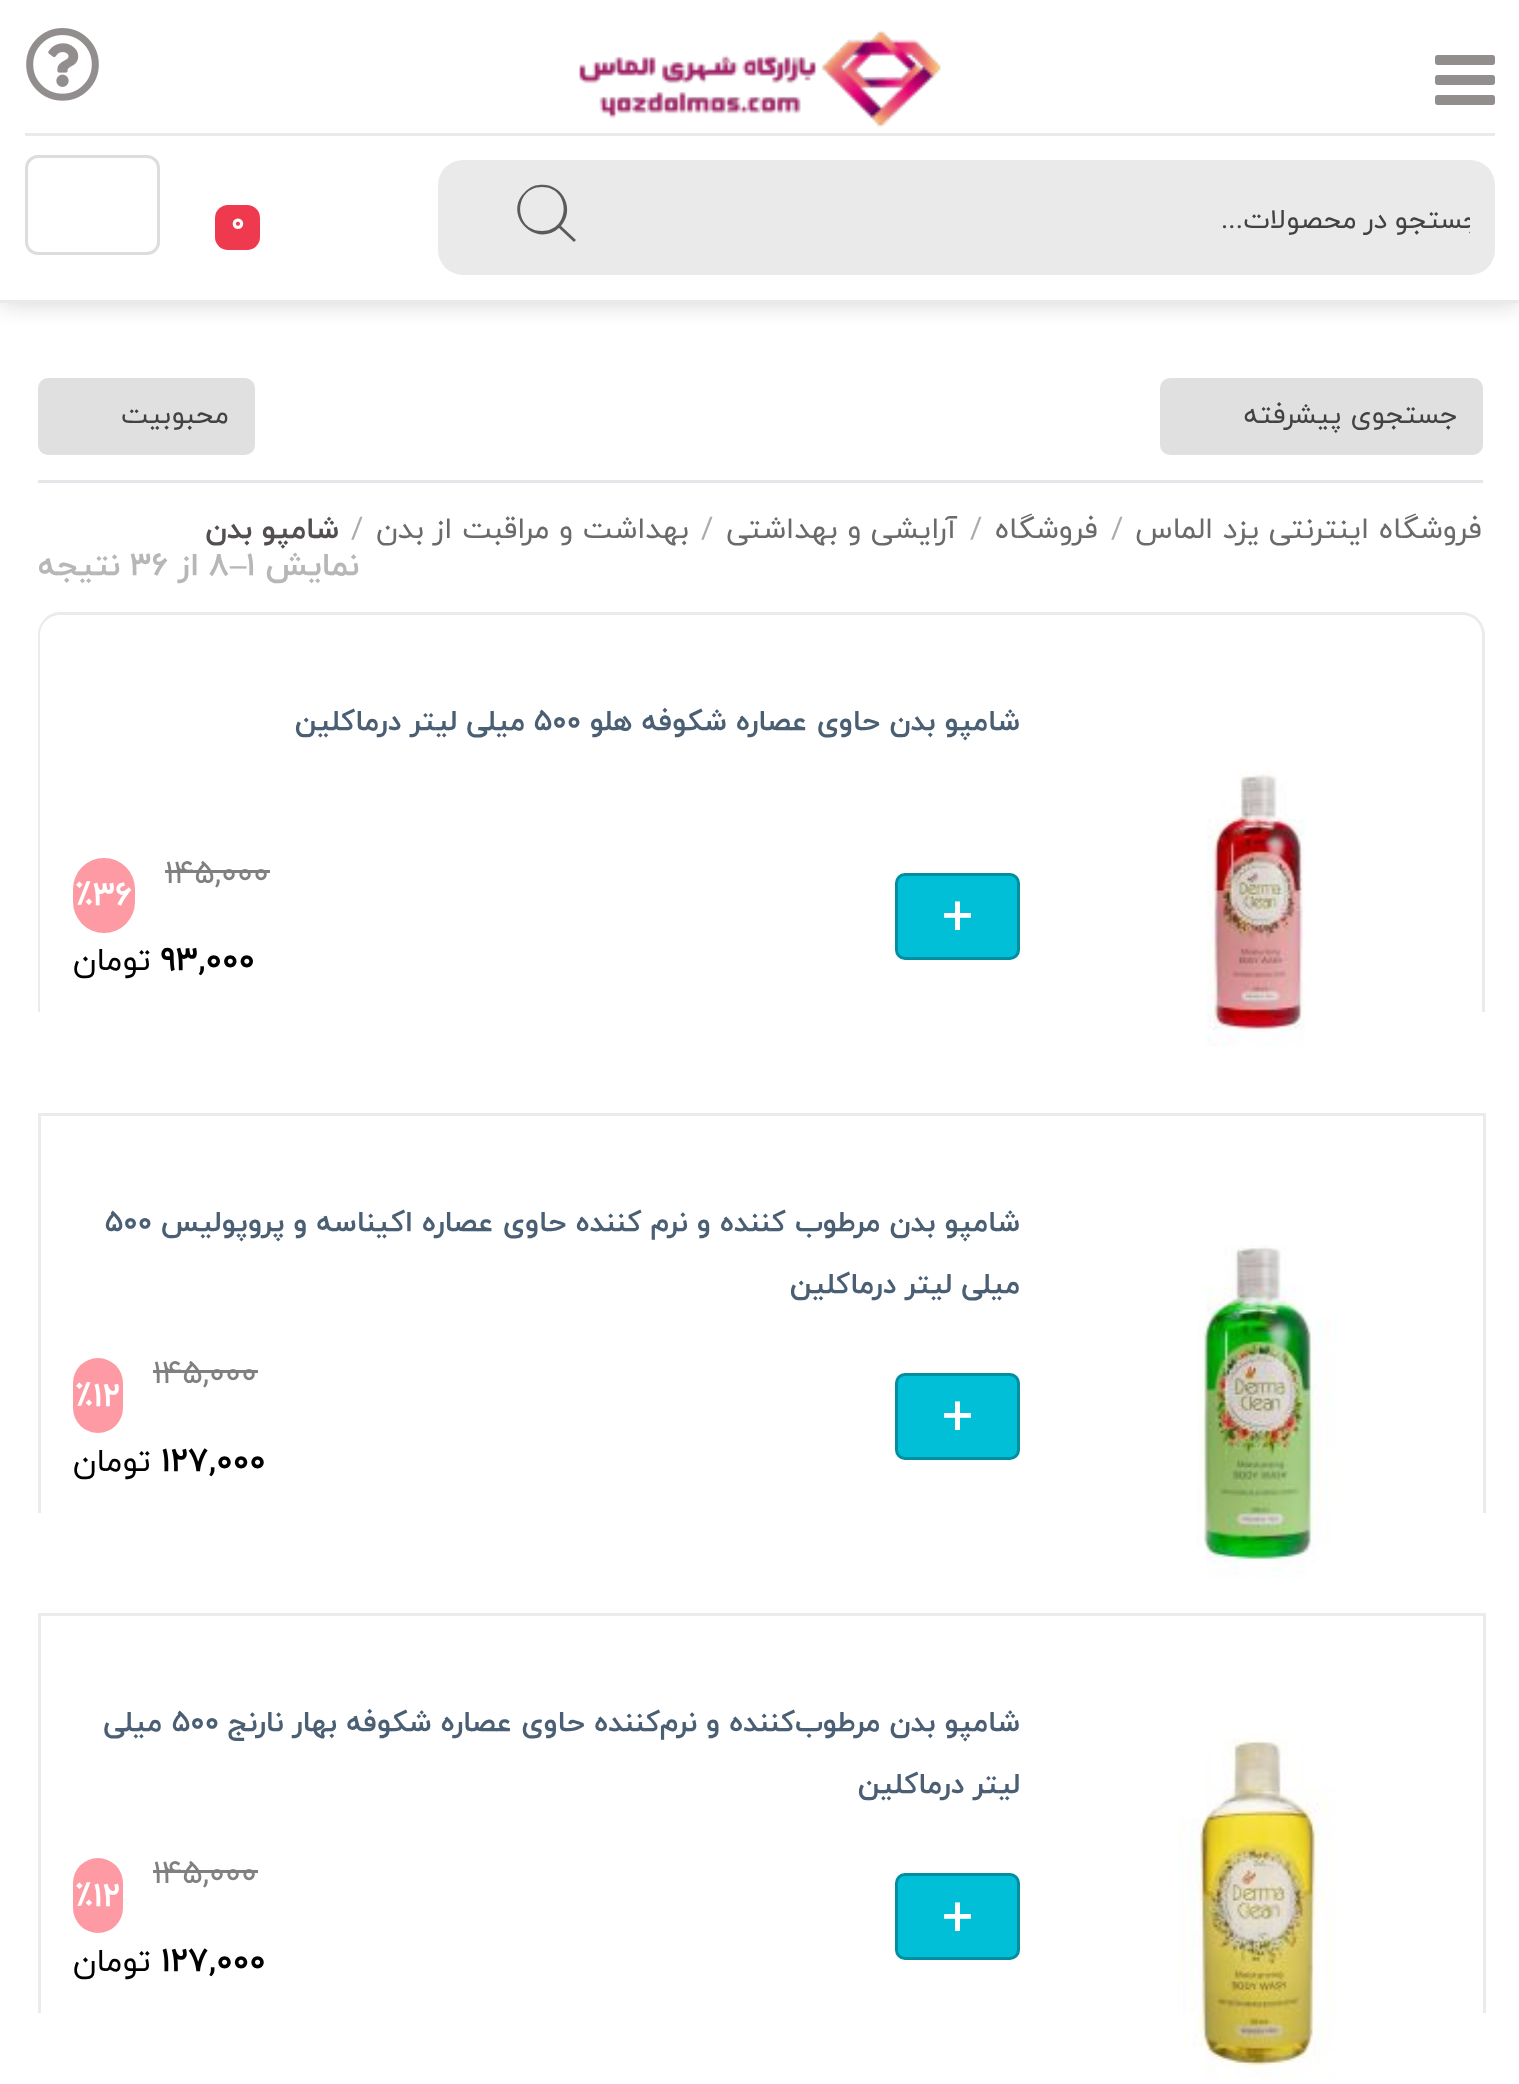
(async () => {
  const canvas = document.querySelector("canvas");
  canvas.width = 1519;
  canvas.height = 2084;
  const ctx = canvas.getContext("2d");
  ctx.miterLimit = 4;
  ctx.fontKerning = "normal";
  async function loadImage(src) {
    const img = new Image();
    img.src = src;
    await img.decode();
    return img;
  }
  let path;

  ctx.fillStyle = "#ffffff";
  ctx.fillRect(0, 0, 1519, 2084);
  ctx.save();
  ctx.beginPath();
  ctx.rect(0, 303, 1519, 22);
  ctx.clip();
  ctx.fillStyle = "rgba(167, 166, 166, 0.5)";
  ctx.filter = "blur(12.5px)";
  ctx.beginPath();
  ctx.rect(0, 0, 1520, 303);
  ctx.fill();
  ctx.filter = "none";
  ctx.restore();
  ctx.fillStyle = "#eaeaea";
  ctx.fillRect(0, 300, 1519, 3);
  ctx.drawImage(await loadImage("img/1.png"), 578, 30, 363, 98);
  ctx.drawImage(await loadImage("img/2.png"), 26, 28, 73, 73);
  ctx.fillRect(25, 133, 1470, 3);
  ctx.drawImage(await loadImage("img/3.png"), 1435, 55, 60, 50);
  ctx.beginPath();
  ctx.roundRect(468, 160, 1027, 115, [0, 25, 25, 0]);
  ctx.fill();
  ctx.beginPath();
  ctx.roundRect(438, 160, 222, 115, [25, 0, 0, 25]);
  ctx.fill();
  ctx.fillStyle = "#5b5b5b";
  path = new Path2D("M561 226C576 209 562 182 539 185C534 185 529 188 525 192C502 214 535 249 559 228L574 242L576 240ZM542 231C513 231 513 187 542 187C571 187 571 231 542 231Z");
  ctx.fill(path);
  ctx.fillStyle = "#ef394e";
  ctx.beginPath();
  ctx.roundRect(215, 205, 45, 45, 13);
  ctx.fill();
  ctx.beginPath();
  ctx.roundRect(26.5, 156.5, 132, 97, 11.5);
  ctx.strokeStyle = "#dddddd";
  ctx.lineWidth = 3;
  ctx.stroke();
  ctx.fillStyle = "#e5e5ea";
  ctx.fillRect(38, 480, 1445, 3);
  ctx.fillStyle = "#e0e0e0";
  ctx.beginPath();
  ctx.roundRect(1160, 378, 323, 77, 10);
  ctx.fill();
  ctx.beginPath();
  ctx.roundRect(38, 378, 217, 77, 10);
  ctx.fill();
  ctx.fillStyle = "#ebebeb";
  path = new Path2D("M60 612H1462C1475 612 1485 623 1485 635V1012H38V635C38 623 48 612 60 612ZM60 615H1462C1474 615 1482 624 1482 635V1012H40V635C40 624 49 615 60 615Z");
  ctx.fill(path, "evenodd");
  ctx.drawImage(await loadImage("img/4.png"), 1205, 771, 100, 276);
  ctx.fillStyle = "#00bfd6";
  ctx.beginPath();
  ctx.roundRect(896.5, 874.5, 122, 84, 8.5);
  ctx.fill();
  ctx.strokeStyle = "#008fa0";
  ctx.stroke();
  ctx.fillStyle = "#808080";
  ctx.fillRect(165, 870, 105, 3);
  ctx.fillStyle = "#fd9aa4";
  ctx.beginPath();
  ctx.roundRect(73, 858, 62, 75, 31);
  ctx.fill();
  for (const [x, y, w, h, color] of [
    [38, 1113, 1447, 3, "#ebebeb"],
    [1483, 1113, 3, 400, "#ebebeb"],
    [38, 1113, 3, 400, "#ebebeb"],
  ]) {
    ctx.fillStyle = color;
    ctx.fillRect(x, y, w, h);
  }
  ctx.drawImage(await loadImage("img/5.png"), 1197, 1245, 140, 333);
  ctx.fillStyle = "#00bfd6";
  ctx.beginPath();
  ctx.roundRect(896.5, 1374.5, 122, 84, 8.5);
  ctx.fill();
  ctx.stroke();
  ctx.fillStyle = "#808080";
  ctx.fillRect(153, 1370, 105, 3);
  ctx.fillStyle = "#fd9aa4";
  ctx.beginPath();
  ctx.roundRect(73, 1358, 50, 75, 25);
  ctx.fill();
  for (const [x, y, w, h, color] of [
    [38, 1613, 1447, 3, "#ebebeb"],
    [1483, 1613, 3, 400, "#ebebeb"],
    [38, 1613, 3, 400, "#ebebeb"],
  ]) {
    ctx.fillStyle = color;
    ctx.fillRect(x, y, w, h);
  }
  ctx.drawImage(await loadImage("img/6.png"), 1178, 1734, 158, 346);
  ctx.fillStyle = "#00bfd6";
  ctx.beginPath();
  ctx.roundRect(896.5, 1874.5, 122, 84, 8.5);
  ctx.fill();
  ctx.stroke();
  ctx.fillStyle = "#808080";
  ctx.fillRect(153, 1870, 105, 3);
  ctx.fillStyle = "#fd9aa4";
  ctx.beginPath();
  ctx.roundRect(73, 1858, 50, 75, 25);
  ctx.fill();
  ctx.save();
  ctx.beginPath();
  ctx.rect(493, 195, 977, 48);
  ctx.clip();
  ctx.letterSpacing = "0.75px";
  ctx.wordSpacing = "-2px";
  ctx.direction = "rtl";
  ctx.font = "27.75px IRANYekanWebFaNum";
  ctx.fillStyle = "#424242";
  ctx.fillText("جستجو در محصولات...", 1481, 228);
  ctx.restore();
  ctx.letterSpacing = "-1px";
  ctx.font = "bold 28px IRANYekanWebFaNum";
  ctx.fillStyle = "#ffffff";
  ctx.fillText("0", 231, 231);
  ctx.letterSpacing = "0px";
  ctx.direction = "rtl";
  ctx.font = "27.75px IRANYekanWebFaNum";
  ctx.fillStyle = "#424242";
  ctx.fillText("جستجوی پیشرفته", 1458, 423);
  ctx.fillText("محبوبیت", 229, 423);
  ctx.font = "30px IRANYekanWebFaNum";
  ctx.fillStyle = "#6a6a6a";
  ctx.fillText("فروشگاه اینترنتی یزد الماس", 1482, 538);
  ctx.direction = "ltr";
  ctx.fillStyle = "#acabab";
  ctx.fillText("/", 1111, 538);
  ctx.direction = "rtl";
  ctx.fillStyle = "#6a6a6a";
  ctx.fillText("فروشگاه", 1098, 538);
  ctx.direction = "ltr";
  ctx.fillStyle = "#acabab";
  ctx.fillText("/", 970, 538);
  ctx.direction = "rtl";
  ctx.fillStyle = "#6a6a6a";
  ctx.fillText("آرایشی و بهداشتی", 957, 538);
  ctx.direction = "ltr";
  ctx.fillStyle = "#acabab";
  ctx.fillText("/", 701, 538);
  ctx.direction = "rtl";
  ctx.fillStyle = "#6a6a6a";
  ctx.fillText("بهداشت و مراقبت از بدن", 689, 538);
  ctx.direction = "ltr";
  ctx.fillStyle = "#acabab";
  ctx.fillText("/", 351, 538);
  ctx.direction = "rtl";
  ctx.font = "bold 30px IRANYekanWebFaNum";
  ctx.fillStyle = "#534f4f";
  ctx.fillText("شامپو بدن", 339, 538);
  ctx.font = "bold 32.5px IRANYekanWebFaNum";
  ctx.fillStyle = "#b7b7b7";
  ctx.fillText("نمایش", 359, 575);
  ctx.direction = "ltr";
  ctx.fillText("1", 246, 575);
  ctx.font = "bold 32.5px Liberation Serif";
  ctx.fillText("–", 230, 575);
  ctx.font = "bold 32.5px IRANYekanWebFaNum";
  ctx.fillText("8", 209, 575);
  ctx.direction = "rtl";
  ctx.fillText("از", 199, 575);
  ctx.direction = "ltr";
  ctx.fillText("36", 130, 575);
  ctx.direction = "rtl";
  ctx.fillText("نتیجه", 120, 575);
  ctx.font = "bold 29.25px IRANYekanWebFaNum";
  ctx.fillStyle = "#4a5f73";
  ctx.fillText("شامپو بدن حاوی عصاره شکوفه هلو", 1020, 730);
  ctx.direction = "ltr";
  ctx.fillText("500", 534, 730);
  ctx.direction = "rtl";
  ctx.fillText("میلی لیتر درماکلین", 525, 730);
  ctx.direction = "ltr";
  ctx.font = "55px IRANYekanWebFaNum";
  ctx.fillStyle = "#ffffff";
  ctx.fillText("+", 942, 934);
  ctx.font = "32.5px IRANYekanWebFaNum";
  ctx.fillStyle = "#808080";
  ctx.fillText("145,000", 165, 883);
  ctx.font = "bold 33.5px IRANYekanWebFaNum";
  ctx.fillStyle = "#ffffff";
  ctx.fillText("٪36", 75, 905);
  ctx.fillStyle = "#000000";
  ctx.fillText("93,000", 161, 970);
  ctx.direction = "rtl";
  ctx.font = "32.5px IRANYekanWebFaNum";
  ctx.fillText("تومان", 151, 970);
  ctx.font = "bold 29.25px IRANYekanWebFaNum";
  ctx.fillStyle = "#4a5f73";
  ctx.fillText("شامپو بدن مرطوب کننده و نرم کننده حاوی عصاره اکیناسه و پروپولیس", 1020, 1231);
  ctx.direction = "ltr";
  ctx.fillText("500", 105, 1231);
  ctx.direction = "rtl";
  ctx.fillText("میلی لیتر درماکلین", 1020, 1293);
  ctx.direction = "ltr";
  ctx.font = "55px IRANYekanWebFaNum";
  ctx.fillStyle = "#ffffff";
  ctx.fillText("+", 942, 1434);
  ctx.font = "32.5px IRANYekanWebFaNum";
  ctx.fillStyle = "#808080";
  ctx.fillText("145,000", 153, 1383);
  ctx.font = "bold 33.5px IRANYekanWebFaNum";
  ctx.fillStyle = "#ffffff";
  ctx.fillText("٪12", 75, 1406);
  ctx.fillStyle = "#000000";
  ctx.fillText("127,000", 161, 1471);
  ctx.direction = "rtl";
  ctx.font = "32.5px IRANYekanWebFaNum";
  ctx.fillText("تومان", 151, 1471);
  ctx.font = "bold 29.25px IRANYekanWebFaNum";
  ctx.fillStyle = "#4a5f73";
  ctx.fillText("شامپو بدن مرطوب‌کننده و نرم‌کننده حاوی عصاره شکوفه بهار نارنج", 1020, 1731);
  ctx.direction = "ltr";
  ctx.fillText("500", 172, 1731);
  ctx.direction = "rtl";
  ctx.fillText("میلی", 162, 1731);
  ctx.fillText("لیتر درماکلین", 1020, 1793);
  ctx.direction = "ltr";
  ctx.font = "55px IRANYekanWebFaNum";
  ctx.fillStyle = "#ffffff";
  ctx.fillText("+", 942, 1935);
  ctx.font = "32.5px IRANYekanWebFaNum";
  ctx.fillStyle = "#808080";
  ctx.fillText("145,000", 153, 1883);
  ctx.font = "bold 33.5px IRANYekanWebFaNum";
  ctx.fillStyle = "#ffffff";
  ctx.fillText("٪12", 75, 1906);
  ctx.fillStyle = "#000000";
  ctx.fillText("127,000", 161, 1971);
  ctx.direction = "rtl";
  ctx.font = "32.5px IRANYekanWebFaNum";
  ctx.fillText("تومان", 151, 1971);
})();
